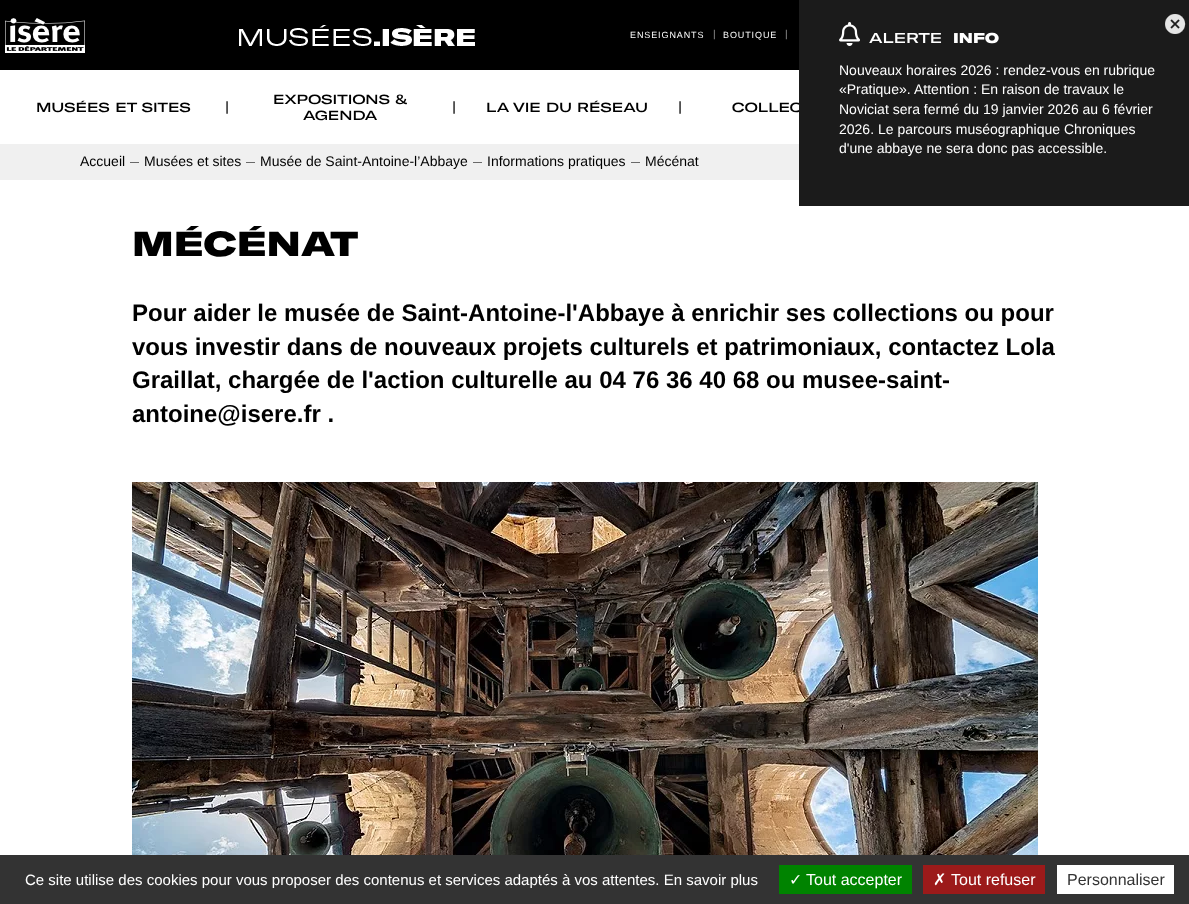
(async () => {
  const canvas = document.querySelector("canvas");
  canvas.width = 1189;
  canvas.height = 904;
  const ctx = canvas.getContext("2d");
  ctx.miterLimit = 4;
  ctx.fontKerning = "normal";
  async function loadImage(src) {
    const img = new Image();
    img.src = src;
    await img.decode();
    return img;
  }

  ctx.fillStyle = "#ffffff";
  ctx.fillRect(0, 0, 1189, 904);
  ctx.fillStyle = "#000000";
  ctx.fillRect(0, 0, 799, 70);
  ctx.drawImage(await loadImage("img/1.png"), 5, 18, 80, 35);
  ctx.drawImage(await loadImage("img/2.png"), 239, 25, 236, 21);
  ctx.fillStyle = "#f0f0f0";
  ctx.fillRect(0, 144, 799, 36);
  ctx.drawImage(await loadImage("img/5.png"), 132, 482, 906, 373);
  for (const [x, y, w, h, color] of [
    [0, 855, 1189, 49, "#333333"],
    [779, 865, 133, 29, "#008300"],
    [923, 865, 122, 29, "#9c1a1a"],
    [1057, 865, 117, 29, "#ffffff"],
  ]) {
    ctx.fillStyle = color;
    ctx.fillRect(x, y, w, h);
  }
  ctx.font = "500 13px GT America";
  ctx.fillStyle = "#000000";
  ctx.fillText("MUSÉES ET SITES", 36, 112);
  ctx.fillText("EXPOSITIONS &", 273, 104);
  ctx.font = "500 14px GT America";
  ctx.fillText("|", 225, 112);
  ctx.font = "500 13px GT America";
  ctx.fillText("AGENDA", 303, 120);
  ctx.font = "500 14px GT America";
  ctx.fillText("|", 452, 112);
  ctx.font = "500 13px GT America";
  ctx.fillText("LA VIE DU RÉSEAU", 486, 112);
  ctx.font = "500 14px GT America";
  ctx.fillText("|", 678, 112);
  ctx.font = "500 13px GT America";
  ctx.fillText("COLLEC", 732, 112);
  ctx.letterSpacing = "0.9px";
  ctx.font = "9px Liberation Sans";
  ctx.fillStyle = "#ffffff";
  ctx.fillText("ENSEIGNANTS", 630, 38);
  ctx.letterSpacing = "0px";
  ctx.font = "10px Liberation Sans";
  ctx.fillStyle = "#989898";
  ctx.fillText("|", 713, 37);
  ctx.letterSpacing = "0.9px";
  ctx.font = "9px Liberation Sans";
  ctx.fillStyle = "#ffffff";
  ctx.fillText("BOUTIQUE", 723, 38);
  ctx.letterSpacing = "0px";
  ctx.font = "10px Liberation Sans";
  ctx.fillStyle = "#989898";
  ctx.fillText("|", 785, 37);
  ctx.fillStyle = "#1b1b1b";
  ctx.fillRect(799, 0, 390, 206);
  ctx.drawImage(await loadImage("img/3.png"), 1165, 14, 21, 20);
  ctx.drawImage(await loadImage("img/4.png"), 839, 22, 21, 24);
  ctx.font = "500 14px GT America";
  ctx.fillStyle = "#ffffff";
  ctx.fillText("ALERTE", 869, 43);
  ctx.font = "900 14px GT America";
  ctx.fillText("INFO", 953, 43);
  ctx.font = "14px Liberation Sans";
  for (const [text, x, y] of [
    ["Nouveaux horaires 2026 : rendez-vous en rubrique", 839, 75],
    ["«Pratique».", 839, 94],
    ["Attention : En raison de travaux le", 914, 94],
    ["Noviciat sera fermé du 19 janvier 2026 au 6 février", 839, 114],
    ["2026. Le parcours muséographique Chroniques", 839, 134],
    ["d'une abbaye ne sera donc pas accessible.", 839, 153],
  ]) {
    ctx.fillText(text, x, y);
  }
  ctx.fillStyle = "#000000";
  ctx.fillText("Accueil", 80, 166);
  ctx.font = "9px Liberation Sans";
  ctx.fillText("—", 130, 165);
  ctx.font = "14px Liberation Sans";
  ctx.fillText("Musées et sites", 144, 166);
  ctx.font = "9px Liberation Sans";
  ctx.fillText("—", 246, 165);
  ctx.font = "14px Liberation Sans";
  ctx.fillText("Musée de Saint-Antoine-l’Abbaye", 260, 166);
  ctx.font = "9px Liberation Sans";
  ctx.fillText("—", 473, 165);
  ctx.font = "14px Liberation Sans";
  ctx.fillText("Informations pratiques", 487, 166);
  ctx.font = "9px Liberation Sans";
  ctx.fillText("—", 631, 165);
  ctx.font = "14px Liberation Sans";
  ctx.fillText("Mécénat", 645, 166);
  ctx.font = "900 34px GT America";
  ctx.fillText("MÉCÉNAT", 132, 256);
  ctx.font = "bold 24px Liberation Sans";
  for (const [text, x, y] of [
    ["Pour aider le musée de Saint-Antoine-l'Abbaye à enrichir ses collections ou pour", 132, 321],
    ["vous investir dans de nouveaux projets culturels et patrimoniaux, contactez Lola", 132, 355],
    ["Graillat, chargée de l'action culturelle au 04 76 36 40 68 ou musee-saint-", 132, 388],
    ["antoine@isere.fr .", 132, 422],
  ]) {
    ctx.fillText(text, x, y);
  }
  ctx.font = "15px Liberation Sans";
  ctx.fillStyle = "#ffffff";
  ctx.fillText("Ce site utilise des cookies pour vous proposer des contenus et services adaptés à vos attentes. En savoir plus", 25, 885);
  ctx.font = "16px DejaVu Sans";
  ctx.fillText("✓", 789, 885);
  ctx.font = "16px Liberation Sans";
  ctx.fillText("Tout accepter", 806, 885);
  ctx.font = "16px DejaVu Sans";
  ctx.fillText("✗", 933, 885);
  ctx.font = "16px Liberation Sans";
  ctx.fillText("Tout refuser", 951, 885);
  ctx.fillStyle = "#333333";
  ctx.fillText("Personnaliser", 1067, 885);
})();
